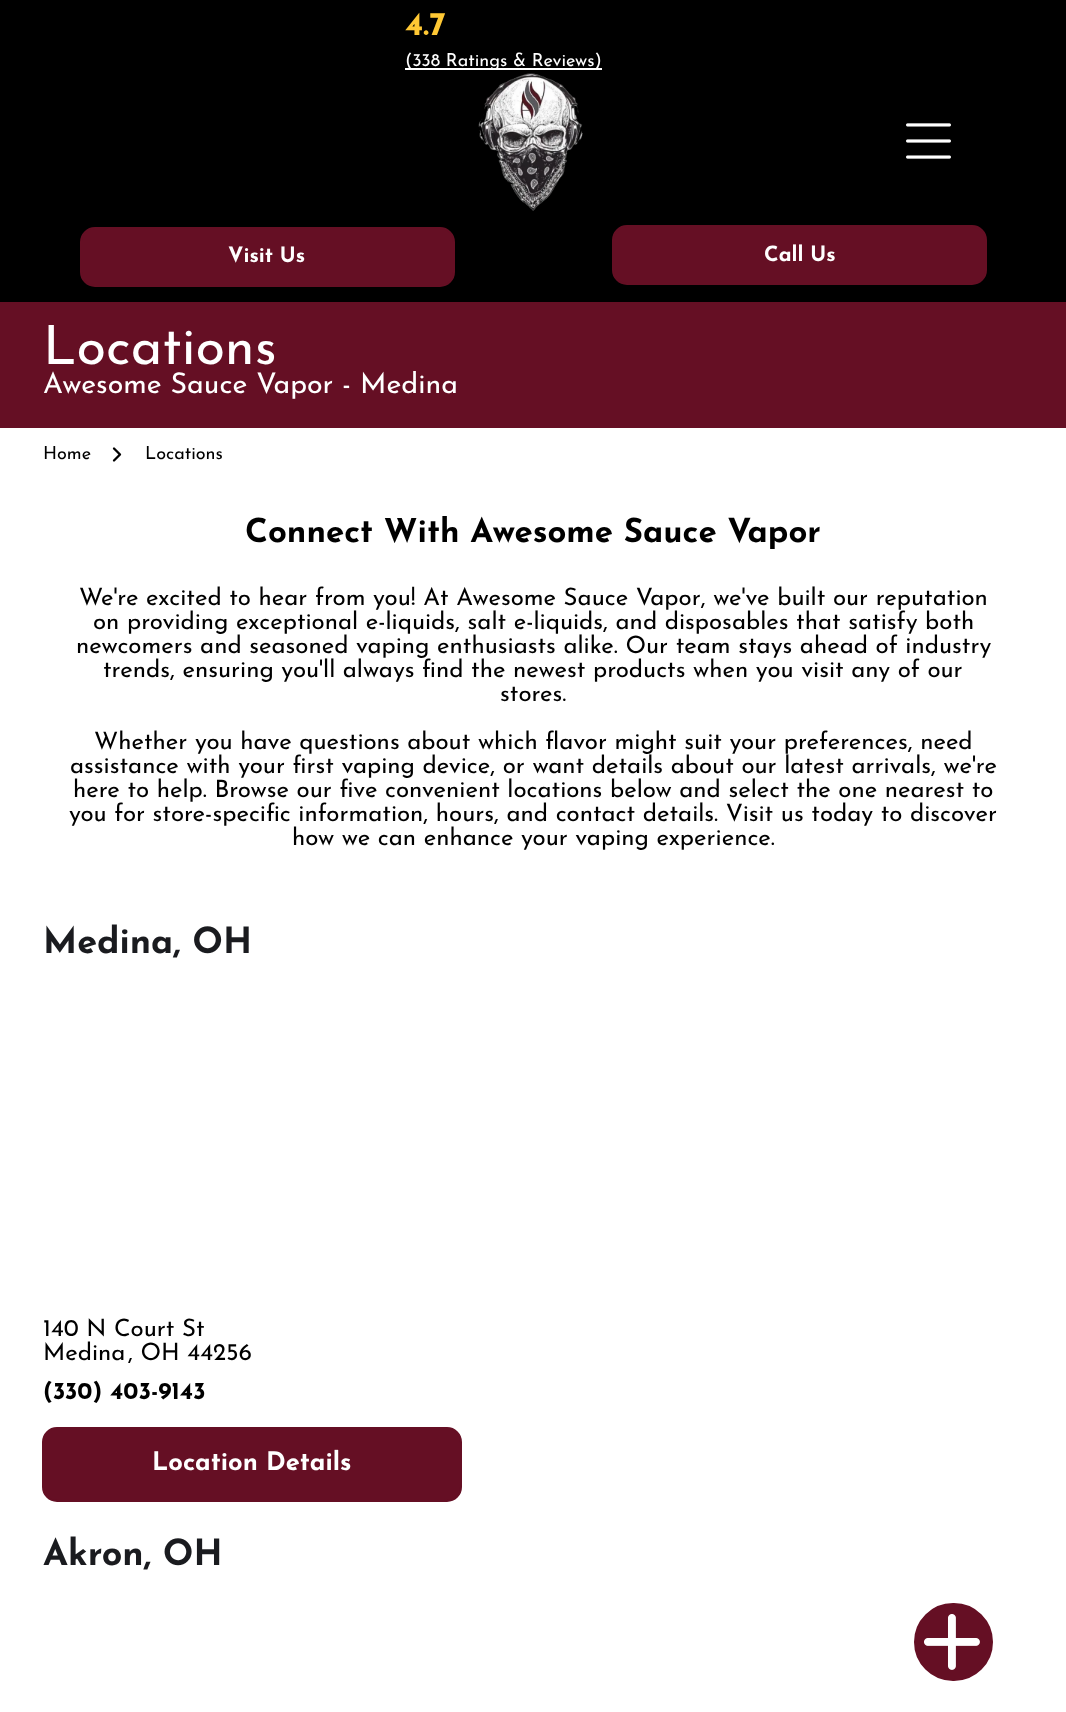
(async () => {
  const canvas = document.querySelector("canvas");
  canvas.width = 1066;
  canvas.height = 1712;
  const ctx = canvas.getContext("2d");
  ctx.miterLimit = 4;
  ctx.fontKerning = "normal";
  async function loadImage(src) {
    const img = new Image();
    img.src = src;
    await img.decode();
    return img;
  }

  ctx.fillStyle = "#ffffff";
  ctx.fillRect(0, 0, 1066, 1712);
  ctx.fillStyle = "#000000";
  ctx.fillRect(0, 0, 1066, 302);
  ctx.fillStyle = "#ffffff";
  ctx.fillRect(405, 68, 197, 2);
  ctx.drawImage(await loadImage("img/1.png"), 478, 73, 105, 138);
  ctx.drawImage(await loadImage("img/2.png"), 906, 123, 45, 36);
  ctx.fillStyle = "#650f24";
  ctx.beginPath();
  ctx.roundRect(81, 228, 373, 58, 14);
  ctx.fill();
  ctx.strokeStyle = "#650f24";
  ctx.lineWidth = 2;
  ctx.stroke();
  ctx.beginPath();
  ctx.roundRect(613, 226, 373, 58, 14);
  ctx.fill();
  ctx.stroke();
  ctx.fillRect(0, 302, 1066, 126);
  ctx.drawImage(await loadImage("img/3.png"), 112, 447, 10, 15);
  ctx.beginPath();
  ctx.roundRect(43, 1428, 418, 73, 14);
  ctx.fill();
  ctx.stroke();
  ctx.beginPath();
  ctx.roundRect(913, 1602, 81, 80, 40);
  ctx.fill();
  ctx.strokeStyle = "#ffffff";
  ctx.stroke();
  ctx.drawImage(await loadImage("img/4.png"), 924, 1614, 56, 56);
  ctx.font = "bold 33px Josefin Sans";
  ctx.fillStyle = "#ffc834";
  ctx.fillText("4.7", 405, 35);
  ctx.font = "18px Josefin Sans";
  ctx.fillStyle = "#ffffff";
  ctx.fillText("(338 Ratings & Reviews)", 405, 66);
  ctx.font = "bold 21px Josefin Sans";
  ctx.fillText("Visit Us", 228, 262);
  ctx.fillText("Call Us", 764, 261);
  ctx.font = "54px Josefin Sans";
  ctx.fillText("Locations", 43, 364);
  ctx.font = "28.5px Josefin Sans";
  ctx.fillText("Awesome Sauce Vapor - Medina", 43, 393);
  ctx.font = "18px Josefin Sans";
  ctx.fillStyle = "#000000";
  ctx.fillText("Home", 43, 459);
  ctx.fillText("Locations", 145, 459);
  ctx.font = "bold 33px Josefin Sans";
  ctx.fillText("Connect With Awesome Sauce Vapor", 245, 542);
  ctx.font = "24px Josefin Sans";
  for (const [text, x, y] of [
    ["We're excited to hear from you! At Awesome Sauce Vapor, we've built our reputation", 79, 605],
    ["on providing exceptional e-liquids, salt e-liquids, and disposables that satisfy both", 93, 629],
    ["newcomers and seasoned vaping enthusiasts alike. Our team stays ahead of industry", 76, 653],
    ["trends, ensuring you'll always find the newest products when you visit any of our", 103, 677],
    ["stores.", 500, 701],
    ["Whether you have questions about which flavor might suit your preferences, need", 94, 749],
    ["assistance with your first vaping device, or want details about our latest arrivals, we're", 70, 773],
    ["here to help. Browse our five convenient locations below and select the one nearest to", 73, 797],
    ["you for store-specific information, hours, and contact details. Visit us today to discover", 69, 821],
    ["how we can enhance your vaping experience.", 292, 845],
  ]) {
    ctx.fillText(text, x, y);
  }
  ctx.font = "bold 36px Josefin Sans";
  ctx.fillStyle = "#1a1b1f";
  ctx.fillText("Medina, OH", 43, 953);
  ctx.font = "24px Josefin Sans";
  ctx.fillStyle = "#000000";
  for (const [text, x, y] of [
    ["140 N Court St", 43, 1336],
    ["Medina", 43, 1360],
    [", OH 44256", 128, 1360],
  ]) {
    ctx.fillText(text, x, y);
  }
  ctx.font = "bold 24px Josefin Sans";
  ctx.fillText("(330) 403-9143", 43, 1399);
  ctx.font = "bold 25.5px Josefin Sans";
  ctx.fillStyle = "#ffffff";
  ctx.fillText("Location Details", 152, 1470);
  ctx.font = "bold 36px Josefin Sans";
  ctx.fillStyle = "#1a1b1f";
  ctx.fillText("Akron, OH", 43, 1565);
})();
